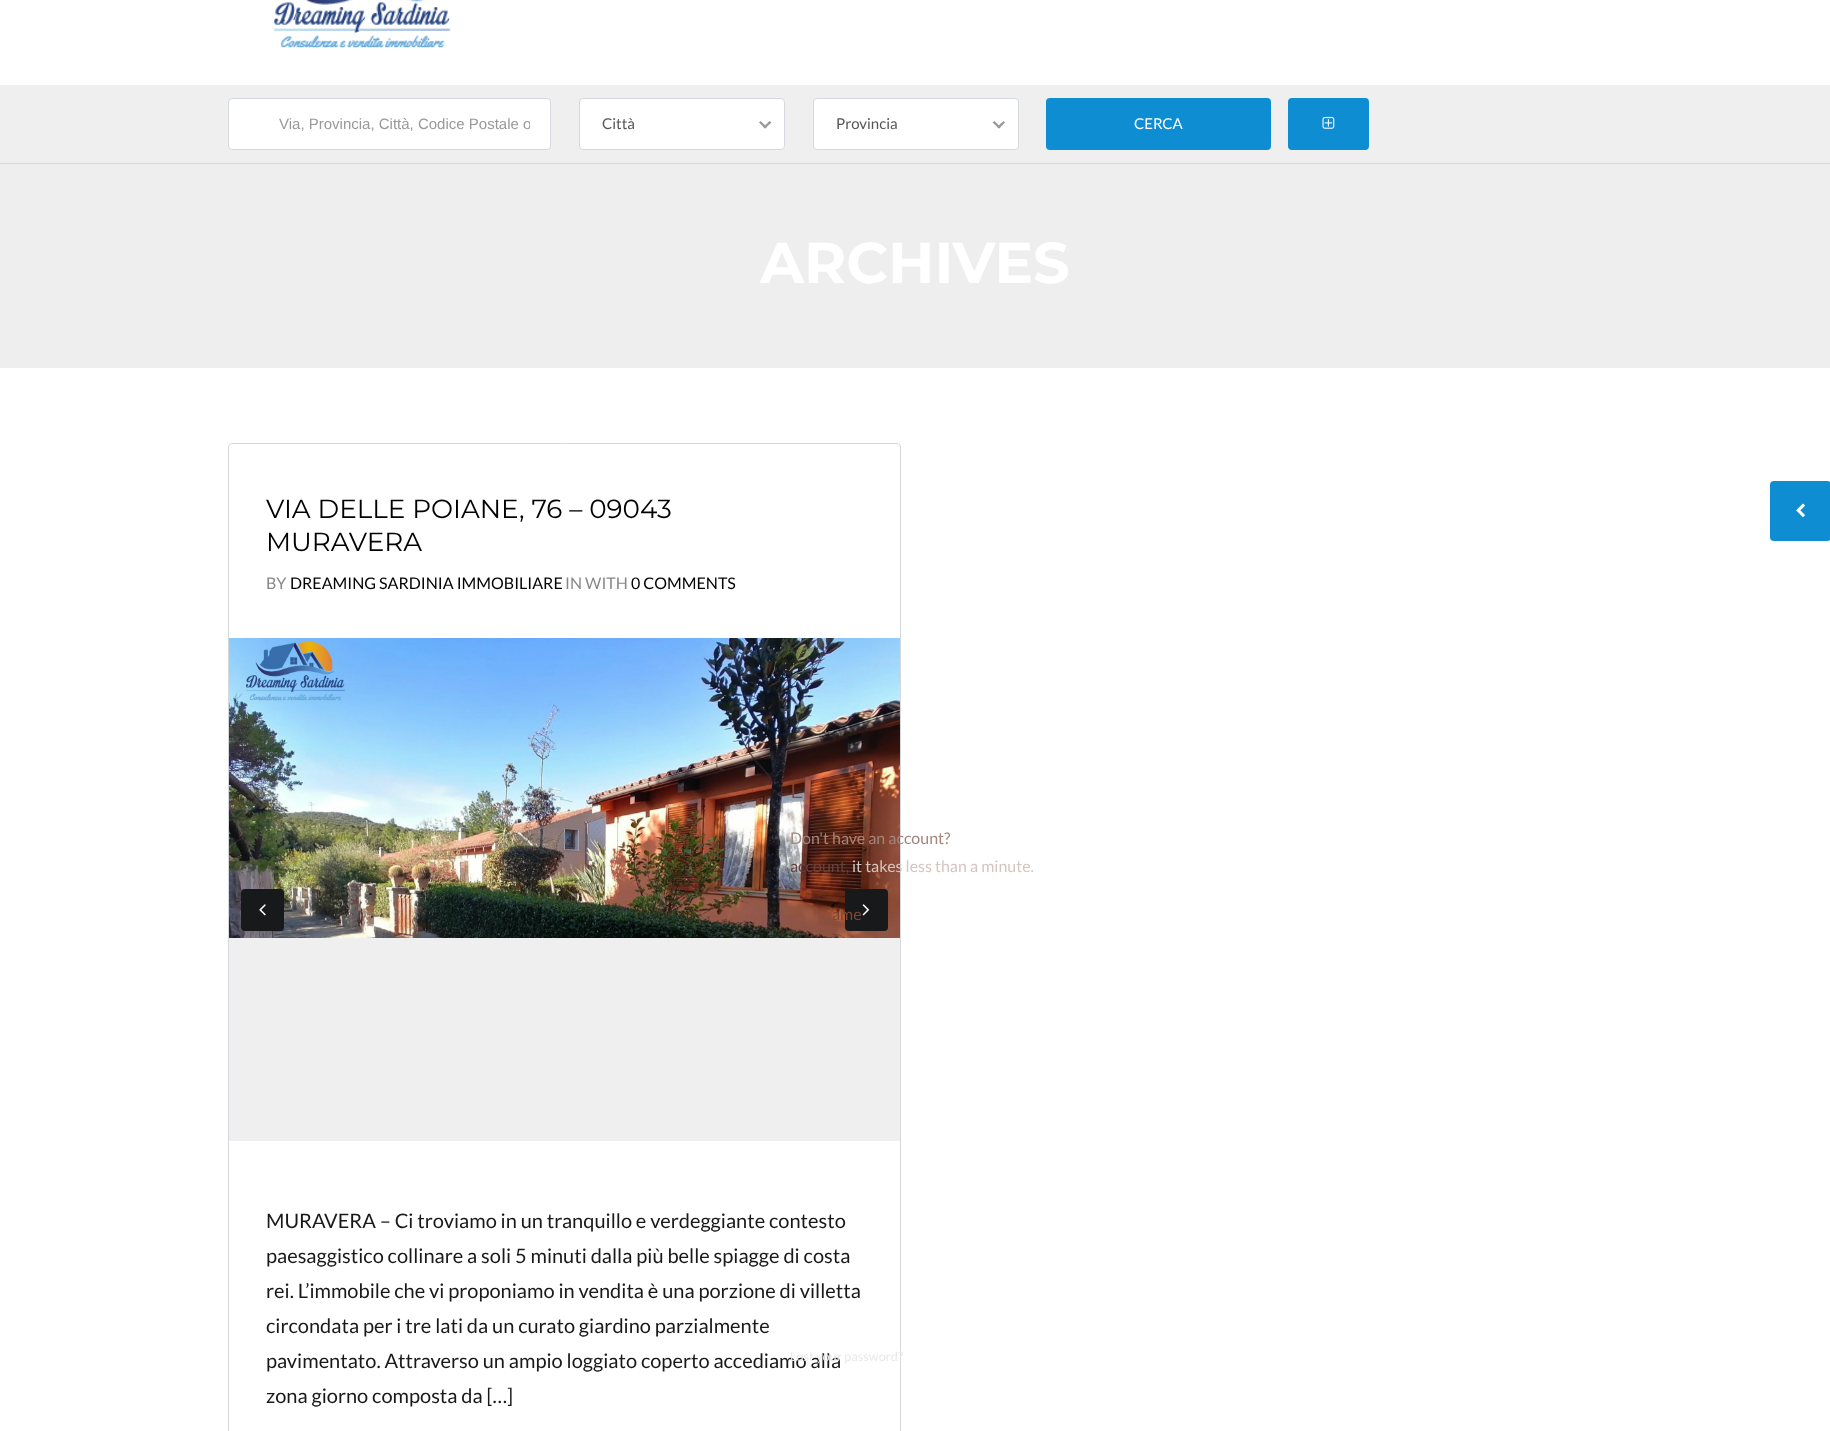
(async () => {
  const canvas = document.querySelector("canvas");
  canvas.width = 1830;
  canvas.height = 1431;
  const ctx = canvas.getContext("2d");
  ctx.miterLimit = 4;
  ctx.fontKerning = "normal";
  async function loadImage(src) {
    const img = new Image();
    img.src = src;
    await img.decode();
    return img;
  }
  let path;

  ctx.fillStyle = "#ffffff";
  ctx.fillRect(0, 0, 1830, 1431);
  ctx.drawImage(await loadImage("img/1.png"), 274, 0, 177, 48);
  ctx.fillStyle = "#efefef";
  ctx.fillRect(0, 85, 1830, 78);
  ctx.fillStyle = "#d5d9dd";
  ctx.fillRect(0, 163, 1830, 1);
  ctx.fillStyle = "#ffffff";
  ctx.beginPath();
  ctx.roundRect(228.5, 98.5, 322, 51, 3.5);
  ctx.fill();
  ctx.strokeStyle = "#d5d9dd";
  ctx.stroke();
  ctx.beginPath();
  ctx.roundRect(579.5, 98.5, 205, 51, 3.5);
  ctx.fill();
  ctx.stroke();
  ctx.fillStyle = "#999999";
  path = new Path2D("M769.5 121L771.5 122.5L765 128.5L763.5 127Z");
  ctx.fill(path);
  path = new Path2D("M760.5 121L767 127L765 128.5L759 122.5Z");
  ctx.fill(path);
  ctx.fillStyle = "#ffffff";
  ctx.beginPath();
  ctx.roundRect(813.5, 98.5, 205, 51, 3.5);
  ctx.fill();
  ctx.stroke();
  ctx.fillStyle = "#999999";
  path = new Path2D("M1003.5 121L1005 122.5L999 128.5L997 127Z");
  ctx.fill(path);
  path = new Path2D("M994.5 121L1000.5 127L999 128.5L992.5 122.5Z");
  ctx.fill(path);
  ctx.fillStyle = "#0f8dd3";
  ctx.beginPath();
  ctx.roundRect(1046, 98, 225, 52, 4);
  ctx.fill();
  ctx.beginPath();
  ctx.roundRect(1288, 98, 81, 52, 4);
  ctx.fill();
  ctx.drawImage(await loadImage("img/2.png"), 1322, 116, 13, 13);
  ctx.fillStyle = "#eeeeee";
  ctx.fillRect(0, 164, 1830, 204);
  ctx.beginPath();
  ctx.roundRect(228.5, 443.5, 672, 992, 3.5);
  ctx.stroke();
  ctx.fillStyle = "#efefef";
  ctx.fillRect(229, 938, 671, 203);
  ctx.drawImage(await loadImage("img/3.png"), 229, 638, 671, 300);
  ctx.fillStyle = "#18191b";
  ctx.beginPath();
  ctx.roundRect(241, 889, 43, 42, 4);
  ctx.fill();
  ctx.drawImage(await loadImage("img/4.png"), 259, 904, 7, 12);
  ctx.beginPath();
  ctx.roundRect(845, 889, 43, 42, 4);
  ctx.fill();
  ctx.drawImage(await loadImage("img/5.png"), 862, 904, 8, 12);
  ctx.fillStyle = "#0f8dd3";
  ctx.beginPath();
  ctx.roundRect(1770, 481, 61, 60, 4);
  ctx.fill();
  ctx.drawImage(await loadImage("img/6.png"), 1796, 503, 9, 14);
  ctx.save();
  ctx.beginPath();
  ctx.rect(279, 116, 251, 18);
  ctx.clip();
  ctx.font = "15px Liberation Sans";
  ctx.fillStyle = "#999999";
  ctx.fillText("Via, Provincia, Città, Codice Postale o", 279, 129);
  ctx.restore();
  ctx.font = "15px Lato";
  ctx.fillStyle = "#555555";
  ctx.fillText("Città", 602, 129);
  ctx.fillText("Provincia", 836, 129);
  ctx.fillStyle = "#ffffff";
  ctx.fillText("CERCA", 1134, 129);
  ctx.font = "bold 57.5px Montserrat";
  ctx.fillText("ARCHIVES", 760, 283);
  ctx.font = "26.25px Montserrat";
  ctx.fillStyle = "#000000";
  ctx.fillText("VIA DELLE POIANE, 76 – 09043", 266, 518);
  ctx.fillText("MURAVERA", 266, 551);
  ctx.font = "16px Lato";
  ctx.fillStyle = "#888888";
  ctx.fillText("BY", 266, 589);
  ctx.fillStyle = "#000000";
  ctx.fillText("DREAMING SARDINIA IMMOBILIARE", 290, 589);
  ctx.fillStyle = "#888888";
  ctx.fillText("IN WITH", 565, 589);
  ctx.fillStyle = "#000000";
  ctx.fillText("0 COMMENTS", 631, 589);
  ctx.font = "20px Lato";
  ctx.fillStyle = "#191919";
  for (const [text, x, y] of [
    ["MURAVERA – Ci troviamo in un tranquillo e verdeggiante contesto", 266, 1228],
    ["paesaggistico collinare a soli 5 minuti dalla più belle spiagge di costa", 266, 1263],
    ["rei. L’immobile che vi proponiamo in vendita è una porzione di villetta", 266, 1298],
    ["circondata per i tre lati da un curato giardino parzialmente", 266, 1333],
    ["pavimentato. Attraverso un ampio loggiato coperto accediamo alla", 266, 1368],
    ["zona giorno composta da […]", 266, 1403],
  ]) {
    ctx.fillText(text, x, y);
  }
  ctx.font = "21px Montserrat";
  ctx.fillStyle = "#8b452f";
  ctx.fillText("L", 790, 798);
  ctx.font = "16px Lato";
  ctx.fillStyle = "#a4857c";
  ctx.fillText("Don't have an account?", 790, 844);
  ctx.fillStyle = "#67423c";
  ctx.fillText("account,", 790, 872);
  ctx.fillStyle = "#d5c5c1";
  ctx.fillText("it takes less than a minute.", 852, 872);
  ctx.fillStyle = "#7d4736";
  ctx.fillText("ame", 832, 920);
  ctx.font = "12.75px Lato";
  ctx.fillStyle = "#e9e9e9";
  ctx.fillText("Lost your password?", 790, 1361);
})();
